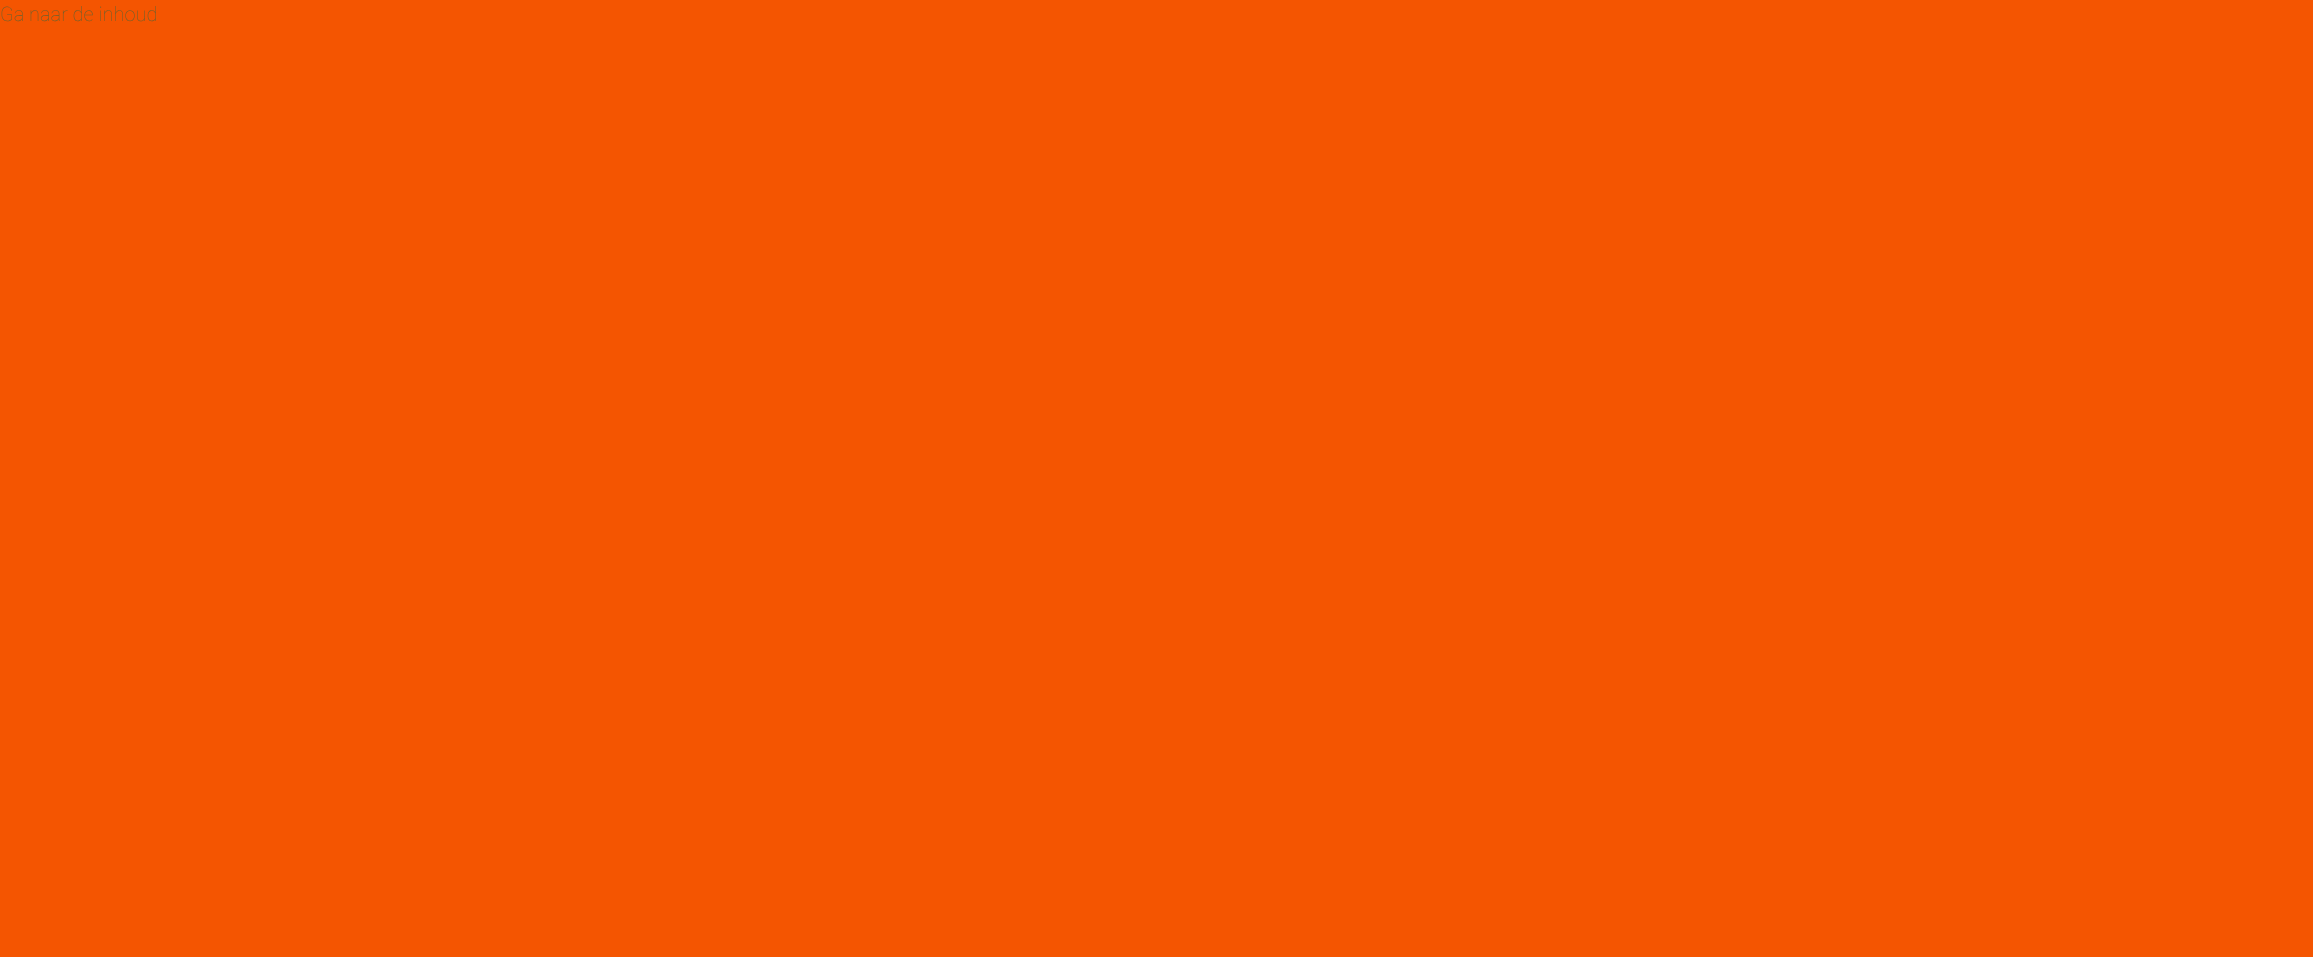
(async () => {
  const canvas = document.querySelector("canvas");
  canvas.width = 2313;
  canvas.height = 957;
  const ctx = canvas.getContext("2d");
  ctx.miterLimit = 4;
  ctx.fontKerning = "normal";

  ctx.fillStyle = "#f45501";
  ctx.fillRect(0, 0, 2313, 957);
  ctx.font = "100 20px Roboto";
  ctx.fillStyle = "#686230";
  ctx.fillText("Ga naar de inhoud", 0, 21);
})();
